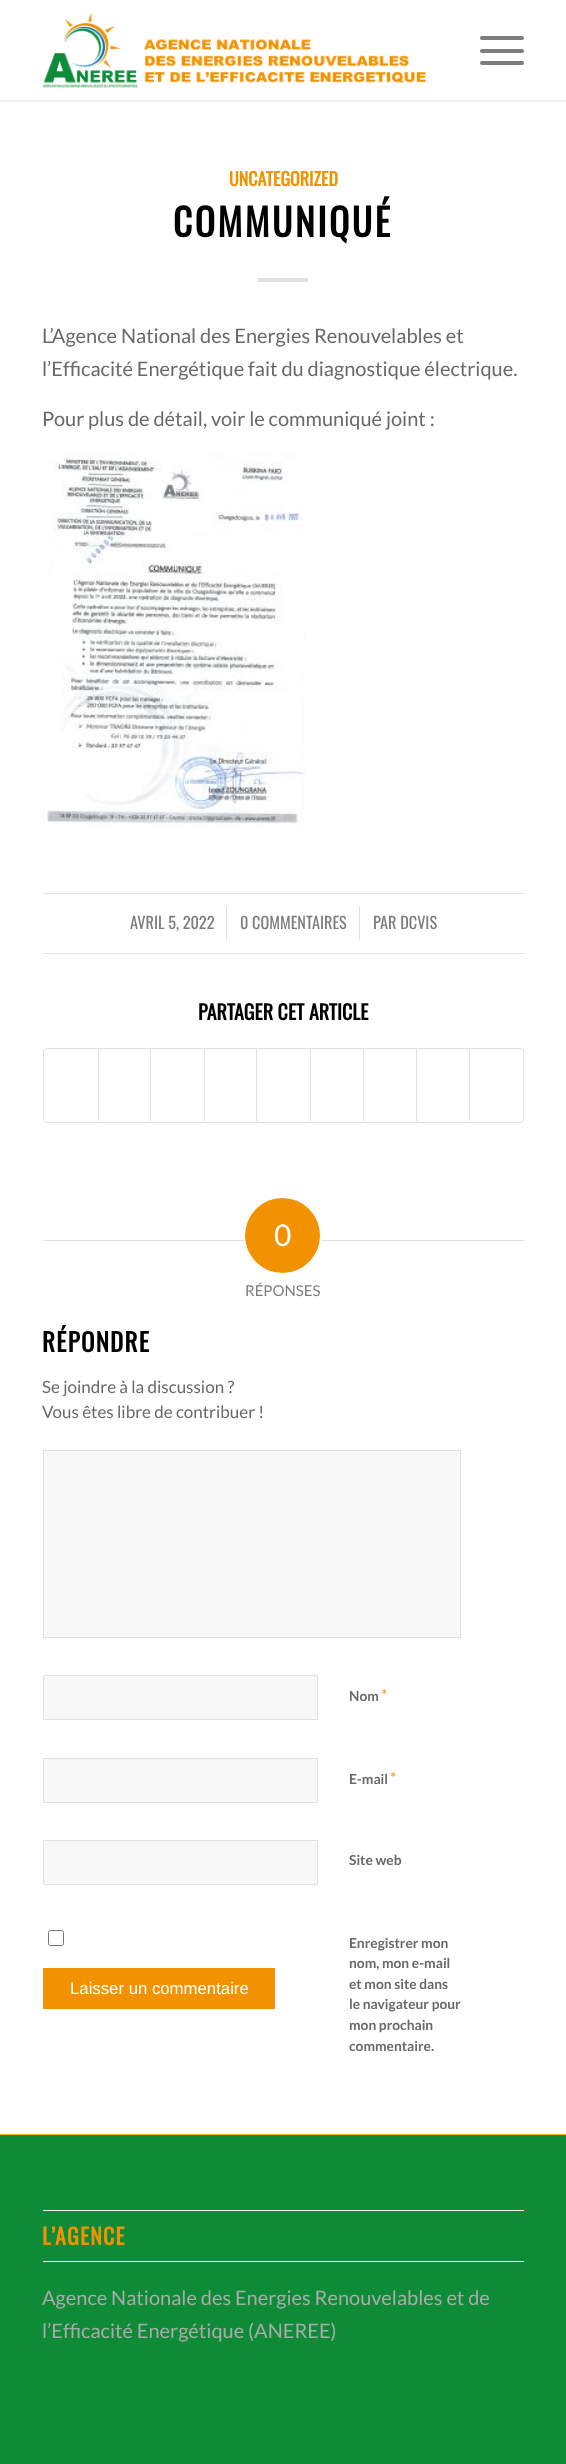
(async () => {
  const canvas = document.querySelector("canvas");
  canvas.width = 566;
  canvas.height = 2464;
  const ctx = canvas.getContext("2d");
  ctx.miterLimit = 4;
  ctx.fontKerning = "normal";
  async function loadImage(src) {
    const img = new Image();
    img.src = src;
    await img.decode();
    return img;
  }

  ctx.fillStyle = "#ffffff";
  ctx.fillRect(0, 0, 566, 2464);
  ctx.fillStyle = "rgba(0, 0, 0, 0.1)";
  ctx.filter = "blur(1px)";
  ctx.beginPath();
  ctx.rect(-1, -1, 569, 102);
  ctx.fill();
  ctx.filter = "none";
  ctx.fillStyle = "#ffffff";
  ctx.fillRect(0, 0, 566, 100);
  ctx.drawImage(await loadImage("img/1.png"), 42, 12, 384, 76);
  ctx.fillStyle = "#7d7d7d";
  ctx.beginPath();
  ctx.roundRect(480, 49, 44, 4, 2);
  ctx.fill();
  ctx.beginPath();
  ctx.roundRect(480, 36, 44, 4, 2);
  ctx.fill();
  ctx.beginPath();
  ctx.roundRect(480, 61, 44, 4, 2);
  ctx.fill();
  ctx.fillStyle = "#e1e1e1";
  ctx.fillRect(258, 278, 50, 4);
  ctx.drawImage(await loadImage("img/2.png"), 47, 451, 258, 375);
  for (const [x, y, w, h, color] of [
    [43, 893, 481, 1, "#e1e1e1"],
    [43, 953, 481, 1, "#e1e1e1"],
    [226, 906, 1, 34, "#e1e1e1"],
    [359, 906, 1, 34, "#e1e1e1"],
  ]) {
    ctx.fillStyle = color;
    ctx.fillRect(x, y, w, h);
  }
  ctx.beginPath();
  ctx.roundRect(43.5, 1048.5, 480, 74, 3.5);
  ctx.strokeStyle = "#e1e1e1";
  ctx.stroke();
  for (const [x, y, w, h, color] of [
    [98, 1049, 1, 72, "#e1e1e1"],
    [150, 1049, 1, 72, "#e1e1e1"],
    [204, 1049, 1, 72, "#e1e1e1"],
    [256, 1049, 1, 72, "#e1e1e1"],
    [310, 1049, 1, 72, "#e1e1e1"],
    [363, 1049, 1, 72, "#e1e1e1"],
    [416, 1049, 1, 72, "#e1e1e1"],
    [469, 1049, 1, 72, "#e1e1e1"],
    [43, 1240, 202, 1, "#e1e1e1"],
  ]) {
    ctx.fillStyle = color;
    ctx.fillRect(x, y, w, h);
  }
  ctx.fillStyle = "#f39200";
  ctx.beginPath();
  ctx.arc(282.5, 1235.5, 37.5, 0, Math.PI * 2);
  ctx.fill();
  ctx.fillStyle = "#e1e1e1";
  ctx.fillRect(321, 1240, 203, 1);
  ctx.fillStyle = "#f8f8f8";
  ctx.beginPath();
  ctx.rect(43.5, 1450.5, 417, 187);
  ctx.fill();
  ctx.stroke();
  ctx.beginPath();
  ctx.rect(43.5, 1675.5, 274, 44);
  ctx.fill();
  ctx.stroke();
  ctx.beginPath();
  ctx.rect(43.5, 1758.5, 274, 44);
  ctx.fill();
  ctx.stroke();
  ctx.beginPath();
  ctx.rect(43.5, 1840.5, 274, 44);
  ctx.fill();
  ctx.stroke();
  ctx.fillStyle = "#f39200";
  ctx.fillRect(43, 1968, 232, 41);
  ctx.beginPath();
  ctx.roundRect(48.5, 1930.5, 15, 15, 2);
  ctx.strokeStyle = "#767676";
  ctx.stroke();
  for (const [x, y, w, h, color] of [
    [0, 2135, 566, 329, "#0d8b37"],
    [0, 2134, 566, 1, "#ffb619"],
    [43, 2210, 481, 1, "#ffffff"],
    [43, 2261, 481, 1, "#ffffff"],
  ]) {
    ctx.fillStyle = color;
    ctx.fillRect(x, y, w, h);
  }
  ctx.font = "bold 18px Oswald";
  ctx.fillStyle = "#f39200";
  ctx.fillText("UNCATEGORIZED", 229, 186);
  ctx.letterSpacing = "2.5px";
  ctx.font = "bold 37.5px Oswald";
  ctx.fillStyle = "#000000";
  ctx.fillText("COMMUNIQUÉ", 173, 237);
  ctx.letterSpacing = "0px";
  ctx.font = "20px Lato";
  ctx.fillStyle = "#696969";
  for (const [text, x, y] of [
    ["L’Agence National des Energies Renouvelables et", 42, 343],
    ["l’Efficacité Energétique fait du diagnostique électrique.", 42, 376],
    ["Pour plus de détail, voir le communiqué joint :", 42, 426],
  ]) {
    ctx.fillText(text, x, y);
  }
  ctx.font = "16.25px Oswald";
  ctx.fillStyle = "#7d7d7d";
  for (const [text, x, y] of [
    ["AVRIL 5, 2022", 130, 929],
    ["0 COMMENTAIRES", 240, 929],
    ["PAR DCVIS", 373, 929],
  ]) {
    ctx.fillText(text, x, y);
  }
  ctx.font = "bold 20px Oswald";
  ctx.fillStyle = "#000000";
  ctx.fillText("PARTAGER CET ARTICLE", 198, 1020);
  ctx.font = "30px Lato";
  ctx.fillStyle = "#ffffff";
  ctx.fillText("0", 274, 1246);
  ctx.font = "15px Lato";
  ctx.fillStyle = "#7d7d7d";
  ctx.fillText("RÉPONSES", 245, 1296);
  ctx.letterSpacing = "1.25px";
  ctx.font = "bold 25px Oswald";
  ctx.fillStyle = "#000000";
  ctx.fillText("RÉPONDRE", 42, 1352);
  ctx.letterSpacing = "0px";
  ctx.font = "17px Lato";
  ctx.fillStyle = "#696969";
  ctx.fillText("Se joindre à la discussion ?", 42, 1393);
  ctx.fillText("Vous êtes libre de contribuer !", 42, 1418);
  ctx.font = "bold 13.75px Lato";
  ctx.fillText("Nom", 349, 1701);
  ctx.font = "16px Lato";
  ctx.fillStyle = "#f39200";
  ctx.fillText("*", 381, 1701);
  ctx.font = "bold 13.75px Lato";
  ctx.fillStyle = "#696969";
  ctx.fillText("E-mail", 349, 1784);
  ctx.font = "16px Lato";
  ctx.fillStyle = "#f39200";
  ctx.fillText("*", 390, 1784);
  ctx.font = "bold 13.75px Lato";
  ctx.fillStyle = "#696969";
  ctx.fillText("Site web", 349, 1865);
  ctx.font = "16.75px Liberation Sans";
  ctx.fillStyle = "#ffffff";
  ctx.fillText("Laisser un commentaire", 70, 1994);
  ctx.font = "bold 13.75px Lato";
  ctx.fillStyle = "#696969";
  for (const [text, x, y] of [
    ["Enregistrer mon", 349, 1948],
    ["nom, mon e-mail", 349, 1968],
    ["et mon site dans", 349, 1989],
    ["le navigateur pour", 349, 2009],
    ["mon prochain", 349, 2030],
    ["commentaire.", 349, 2051],
  ]) {
    ctx.fillText(text, x, y);
  }
  ctx.letterSpacing = "1.25px";
  ctx.font = "bold 22px Oswald";
  ctx.fillStyle = "#f39200";
  ctx.fillText("L’AGENCE", 42, 2245);
  ctx.letterSpacing = "0px";
  ctx.font = "20px Lato";
  ctx.fillStyle = "#aaaaaa";
  ctx.fillText("Agence Nationale des Energies Renouvelables et de", 42, 2305);
  ctx.fillText("l’Efficacité Energétique (ANEREE)", 42, 2338);
})();
